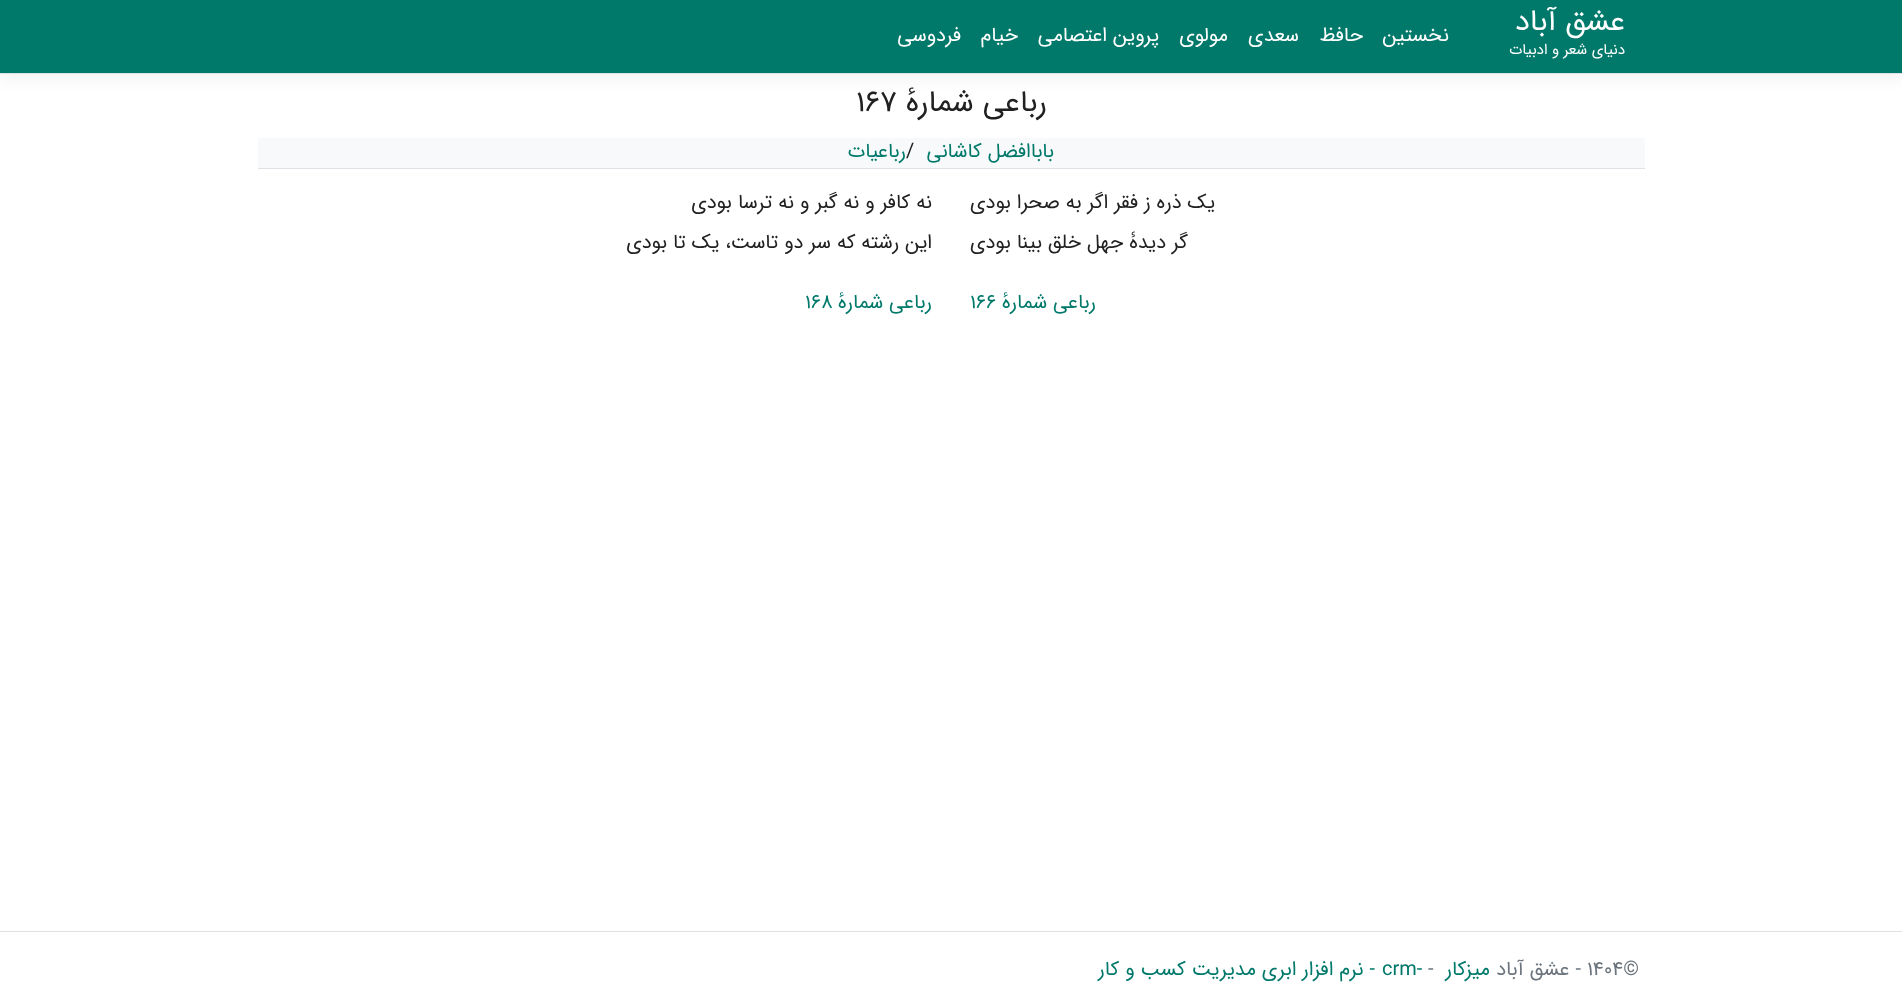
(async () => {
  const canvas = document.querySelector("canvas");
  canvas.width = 1902;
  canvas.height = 1006;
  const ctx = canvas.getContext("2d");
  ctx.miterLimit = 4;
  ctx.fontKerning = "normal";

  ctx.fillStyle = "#ffffff";
  ctx.fillRect(0, 0, 1902, 1006);
  ctx.fillStyle = "rgba(0, 0, 0, 0.05)";
  ctx.filter = "blur(7.5px)";
  ctx.beginPath();
  ctx.rect(0, 5, 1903, 74);
  ctx.fill();
  ctx.filter = "none";
  for (const [x, y, w, h, color] of [
    [0, 0, 1902, 73, "#00796b"],
    [0, 73, 1902, 1, "#dee2e6"],
    [258, 168, 1387, 1, "#dee2e6"],
    [258, 138, 1387, 30, "#f8f9fa"],
    [0, 931, 1902, 1, "#dee2e6"],
  ]) {
    ctx.fillStyle = color;
    ctx.fillRect(x, y, w, h);
  }
  ctx.direction = "rtl";
  ctx.font = "30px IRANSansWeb";
  ctx.fillStyle = "#ffffff";
  ctx.fillText("عشق آباد", 1625, 30);
  ctx.font = "15px IRANSansWeb";
  ctx.fillText("دنیای شعر و ادبیات", 1625, 54);
  ctx.font = "20px IRANSansWeb";
  for (const [text, x, y] of [
    ["نخستین", 1449, 41],
    ["حافظ", 1363, 41],
    ["سعدی", 1299, 41],
    ["مولوی", 1228, 41],
    ["پروین اعتصامی", 1159, 41],
    ["خیام", 1018, 41],
    ["فردوسی", 961, 41],
  ]) {
    ctx.fillText(text, x, y);
  }
  ctx.font = "30px IRANSansWeb";
  ctx.fillStyle = "#212121";
  ctx.fillText("رباعی شمارهٔ", 1047, 111);
  ctx.direction = "ltr";
  ctx.fillText("۱۶۷", 856, 111);
  ctx.direction = "rtl";
  ctx.font = "20px IRANSansWeb";
  ctx.fillStyle = "#00796b";
  ctx.fillText("باباافضل کاشانی", 1054, 157);
  ctx.direction = "ltr";
  ctx.fillStyle = "#212121";
  ctx.fillText("/", 906, 157);
  ctx.direction = "rtl";
  ctx.fillStyle = "#00796b";
  ctx.fillText("رباعیات", 906, 157);
  ctx.fillStyle = "#212121";
  for (const [text, x, y] of [
    ["یک ذره ز فقر اگر به صحرا بودی", 1215, 208],
    ["نه کافر و نه گبر و نه ترسا بودی", 932, 208],
    ["گر دیدۀ جهل خلق بینا بودی", 1188, 248],
    ["این رشته که سر دو تاست، یک تا بودی", 932, 248],
  ]) {
    ctx.fillText(text, x, y);
  }
  ctx.fillStyle = "#00796b";
  ctx.fillText("رباعی شمارهٔ", 1096, 308);
  ctx.direction = "ltr";
  ctx.fillText("۱۶۶", 970, 308);
  ctx.direction = "rtl";
  ctx.fillText("رباعی شمارهٔ", 932, 308);
  ctx.direction = "ltr";
  ctx.fillText("۱۶۸", 805, 308);
  ctx.fillStyle = "#6c757d";
  ctx.fillText("۱۴۰۴©", 1587, 975);
  ctx.direction = "rtl";
  ctx.fillText("- عشق آباد", 1581, 975);
  ctx.fillStyle = "#00796b";
  ctx.fillText("میزکار", 1490, 975);
  ctx.direction = "ltr";
  ctx.fillStyle = "#6c757d";
  ctx.fillText("-", 1428, 975);
  ctx.fillStyle = "#00796b";
  ctx.fillText("crm-", 1382, 975);
  ctx.direction = "rtl";
  ctx.fillText("- نرم افزار ابری مدیریت کسب و کار", 1375, 975);
})();
